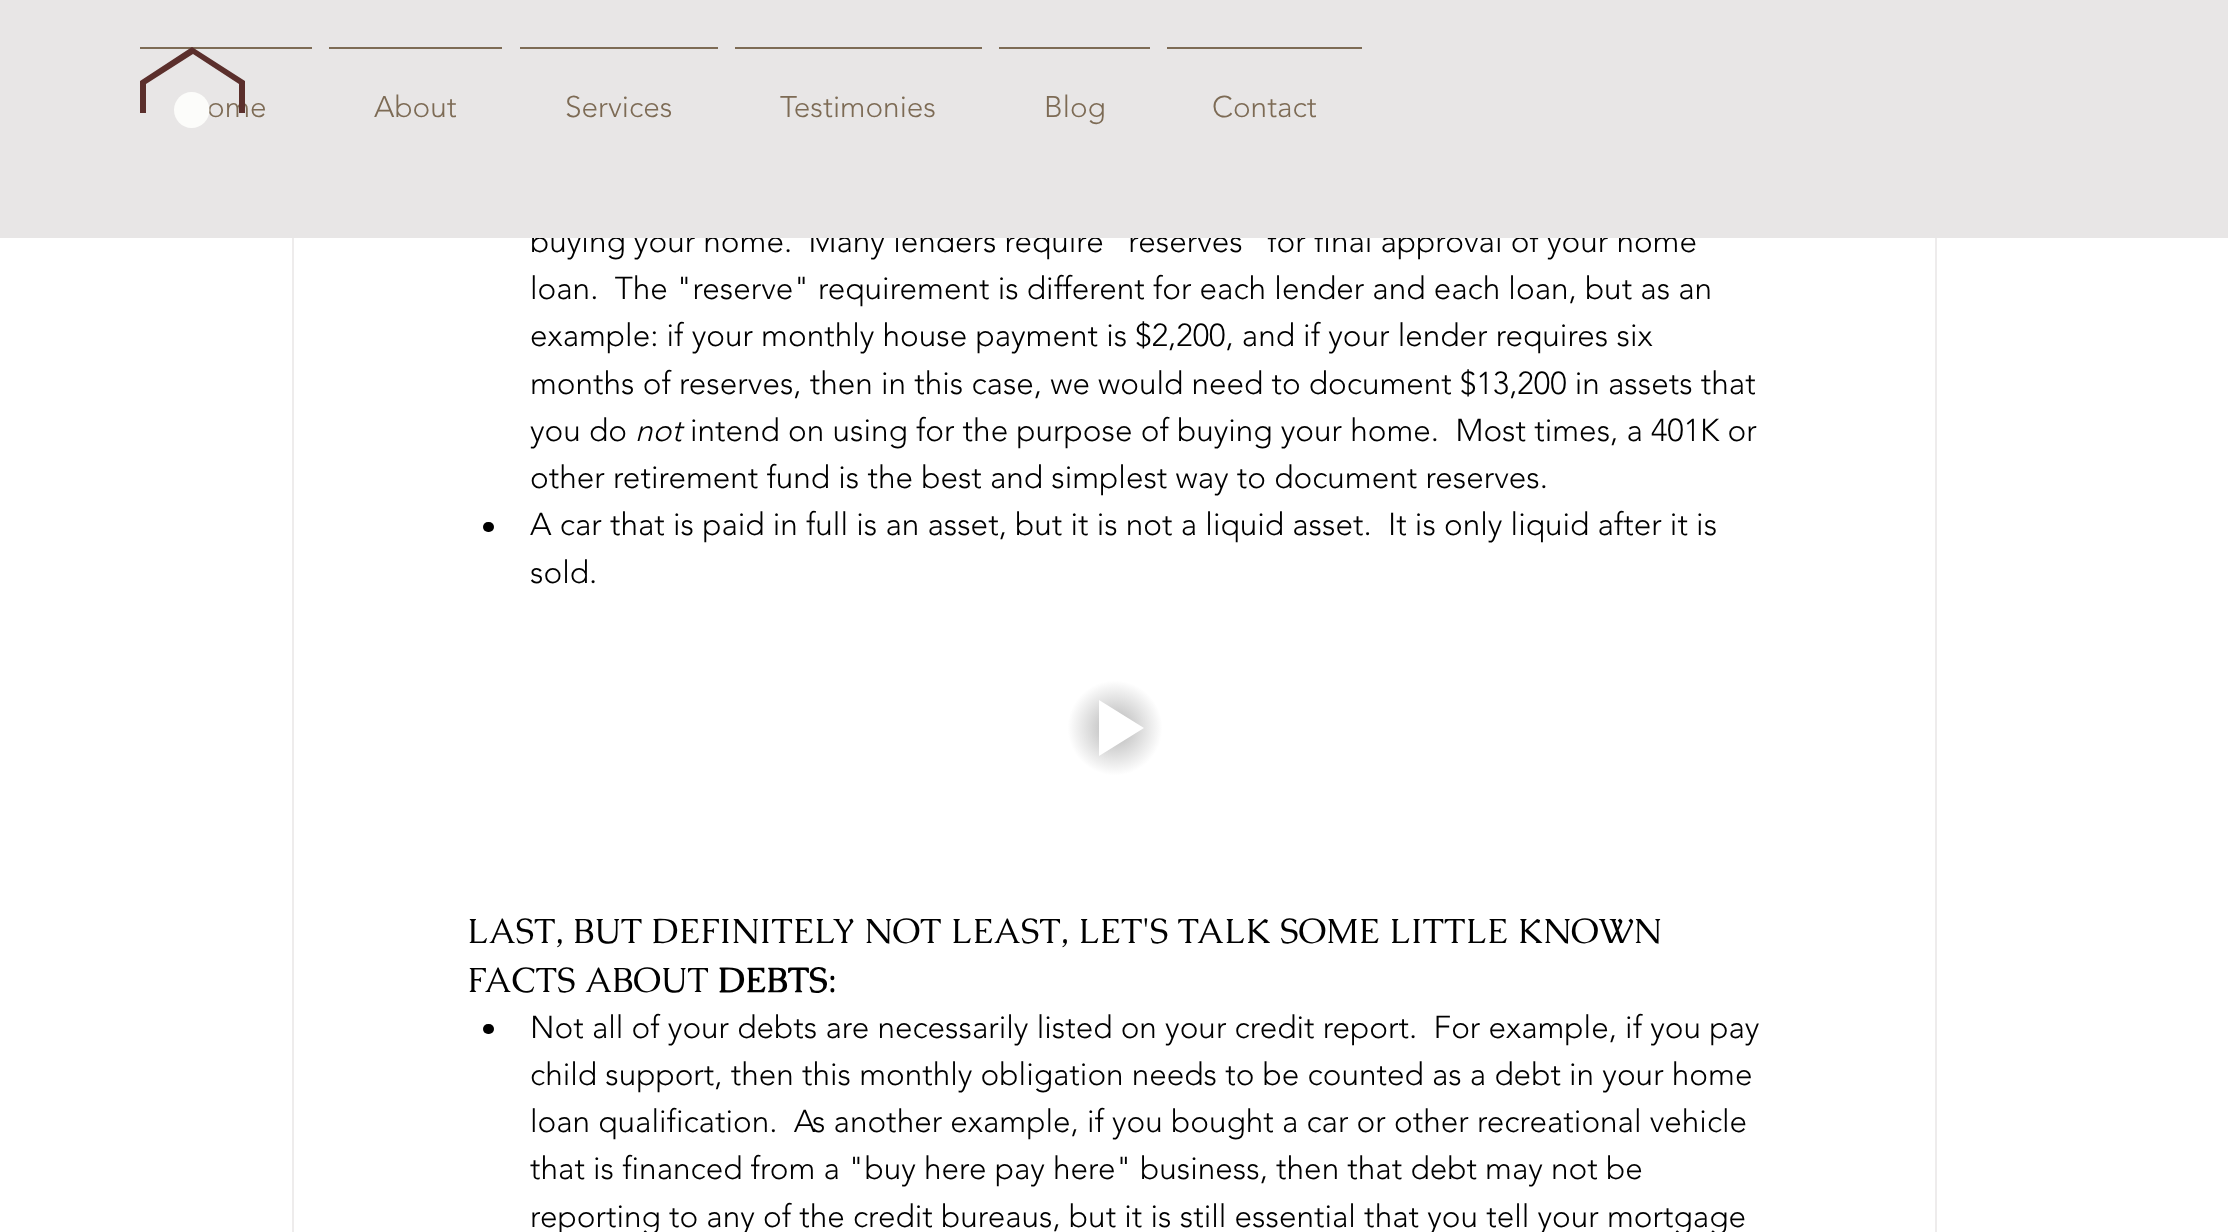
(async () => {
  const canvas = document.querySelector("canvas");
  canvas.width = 2228;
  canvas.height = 1232;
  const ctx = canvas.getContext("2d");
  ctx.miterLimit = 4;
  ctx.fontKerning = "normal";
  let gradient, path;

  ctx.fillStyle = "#ffffff";
  ctx.fillRect(0, 0, 2228, 1232);
  ctx.strokeStyle = "#eeecec";
  ctx.lineWidth = 2;
  ctx.strokeRect(293, -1, 1643, 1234);
  ctx.fillStyle = "#000000";
  ctx.beginPath();
  ctx.roundRect(483, 522, 11, 10, 5);
  ctx.fill();
  gradient = ctx.createRadialGradient(1115, 728, 0, 1115, 728, 79);
  gradient.addColorStop(0, "#b3b3b3");
  gradient.addColorStop(0.6, "#ffffff");
  ctx.fillStyle = gradient;
  ctx.beginPath();
  ctx.arc(1115, 728, 56, 0, Math.PI * 2);
  ctx.fill();
  ctx.fillStyle = "#ffffff";
  path = new Path2D("M1099 756V700L1144 728Z");
  ctx.fill(path);
  ctx.fillStyle = "#000000";
  ctx.beginPath();
  ctx.roundRect(483, 1024, 11, 10, 5);
  ctx.fill();
  ctx.font = "300 31.5px 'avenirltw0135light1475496'";
  ctx.fillText("buying your home.  Many lenders require \"reserves\" for final approval of your home", 530, 252);
  ctx.fillStyle = "#e8e6e6";
  ctx.fillRect(0, 0, 2228, 238);
  ctx.font = "300 29.75px 'avenirltw0135light1475496'";
  ctx.fillStyle = "#7d6b55";
  ctx.fillText("ome", 207, 117);
  ctx.fillStyle = "#fcfcfa";
  path = new Path2D("M209.5 110C209.5 120 201.5 128 191.5 128C182 128 174 120 174 110C174 100 182 92 191.5 92C201.5 92 209.5 100 209.5 110Z");
  ctx.fill(path, "evenodd");
  ctx.fillStyle = "#7d6b55";
  ctx.fillRect(140, 47, 172, 2);
  ctx.fillStyle = "#5b2f2c";
  path = new Path2D("M146 84V113H140V81L192 47L245 81V113H239V84L193 54Z");
  ctx.fill(path);
  ctx.fillStyle = "#7d6b55";
  ctx.fillText("Contact", 1212, 117);
  ctx.fillRect(1167, 47, 195, 2);
  ctx.fillText("Blog", 1044, 117);
  ctx.fillRect(999, 47, 151, 2);
  ctx.fillText("Testimonies", 780, 117);
  ctx.fillRect(735, 47, 247, 2);
  ctx.fillText("Services", 565, 117);
  ctx.fillRect(520, 47, 198, 2);
  ctx.fillText("About", 374, 117);
  ctx.fillRect(329, 47, 173, 2);
  ctx.font = "300 31.5px 'avenirltw0135light1475496'";
  ctx.fillStyle = "#000000";
  for (const [text, x, y] of [
    ["loan.  The \"reserve\" requirement is different for each lender and each loan, but as an", 530, 299],
    ["example: if your monthly house payment is $2,200, and if your lender requires six", 530, 346],
    ["months of reserves, then in this case, we would need to document $13,200 in assets that", 530, 394],
    ["you do", 530, 441],
  ]) {
    ctx.fillText(text, x, y);
  }
  ctx.font = "italic 300 31.5px 'avenirltw0135light1475496'";
  ctx.fillText("not", 635, 441);
  ctx.font = "300 31.5px 'avenirltw0135light1475496'";
  for (const [text, x, y] of [
    ["intend on using for the purpose of buying your home.  Most times, a 401K or", 690, 441],
    ["other retirement fund is the best and simplest way to document reserves.", 530, 488],
    ["A car that is paid in full is an asset, but it is not a liquid asset.  It is only liquid after it is", 530, 535],
    ["sold.", 530, 583],
  ]) {
    ctx.fillText(text, x, y);
  }
  ctx.font = "35px Caudex";
  ctx.fillText("LAST, BUT DEFINITELY NOT LEAST, LET'S TALK SOME LITTLE KNOWN", 467, 943);
  ctx.fillText("FACTS ABOUT", 467, 992);
  ctx.font = "bold 35px Caudex";
  ctx.fillText("DEBTS", 718, 992);
  ctx.font = "35px Caudex";
  ctx.fillText(":", 828, 992);
  ctx.font = "300 31.5px 'avenirltw0135light1475496'";
  for (const [text, x, y] of [
    ["Not all of your debts are necessarily listed on your credit report.  For example, if you pay", 530, 1038],
    ["child support, then this monthly obligation needs to be counted as a debt in your home", 530, 1085],
    ["loan qualification.  As another example, if you bought a car or other recreational vehicle", 530, 1132],
    ["that is financed from a \"buy here pay here\" business, then that debt may not be", 530, 1179],
    ["reporting to any of the credit bureaus, but it is still essential that you tell your mortgage", 530, 1227],
  ]) {
    ctx.fillText(text, x, y);
  }
})();
